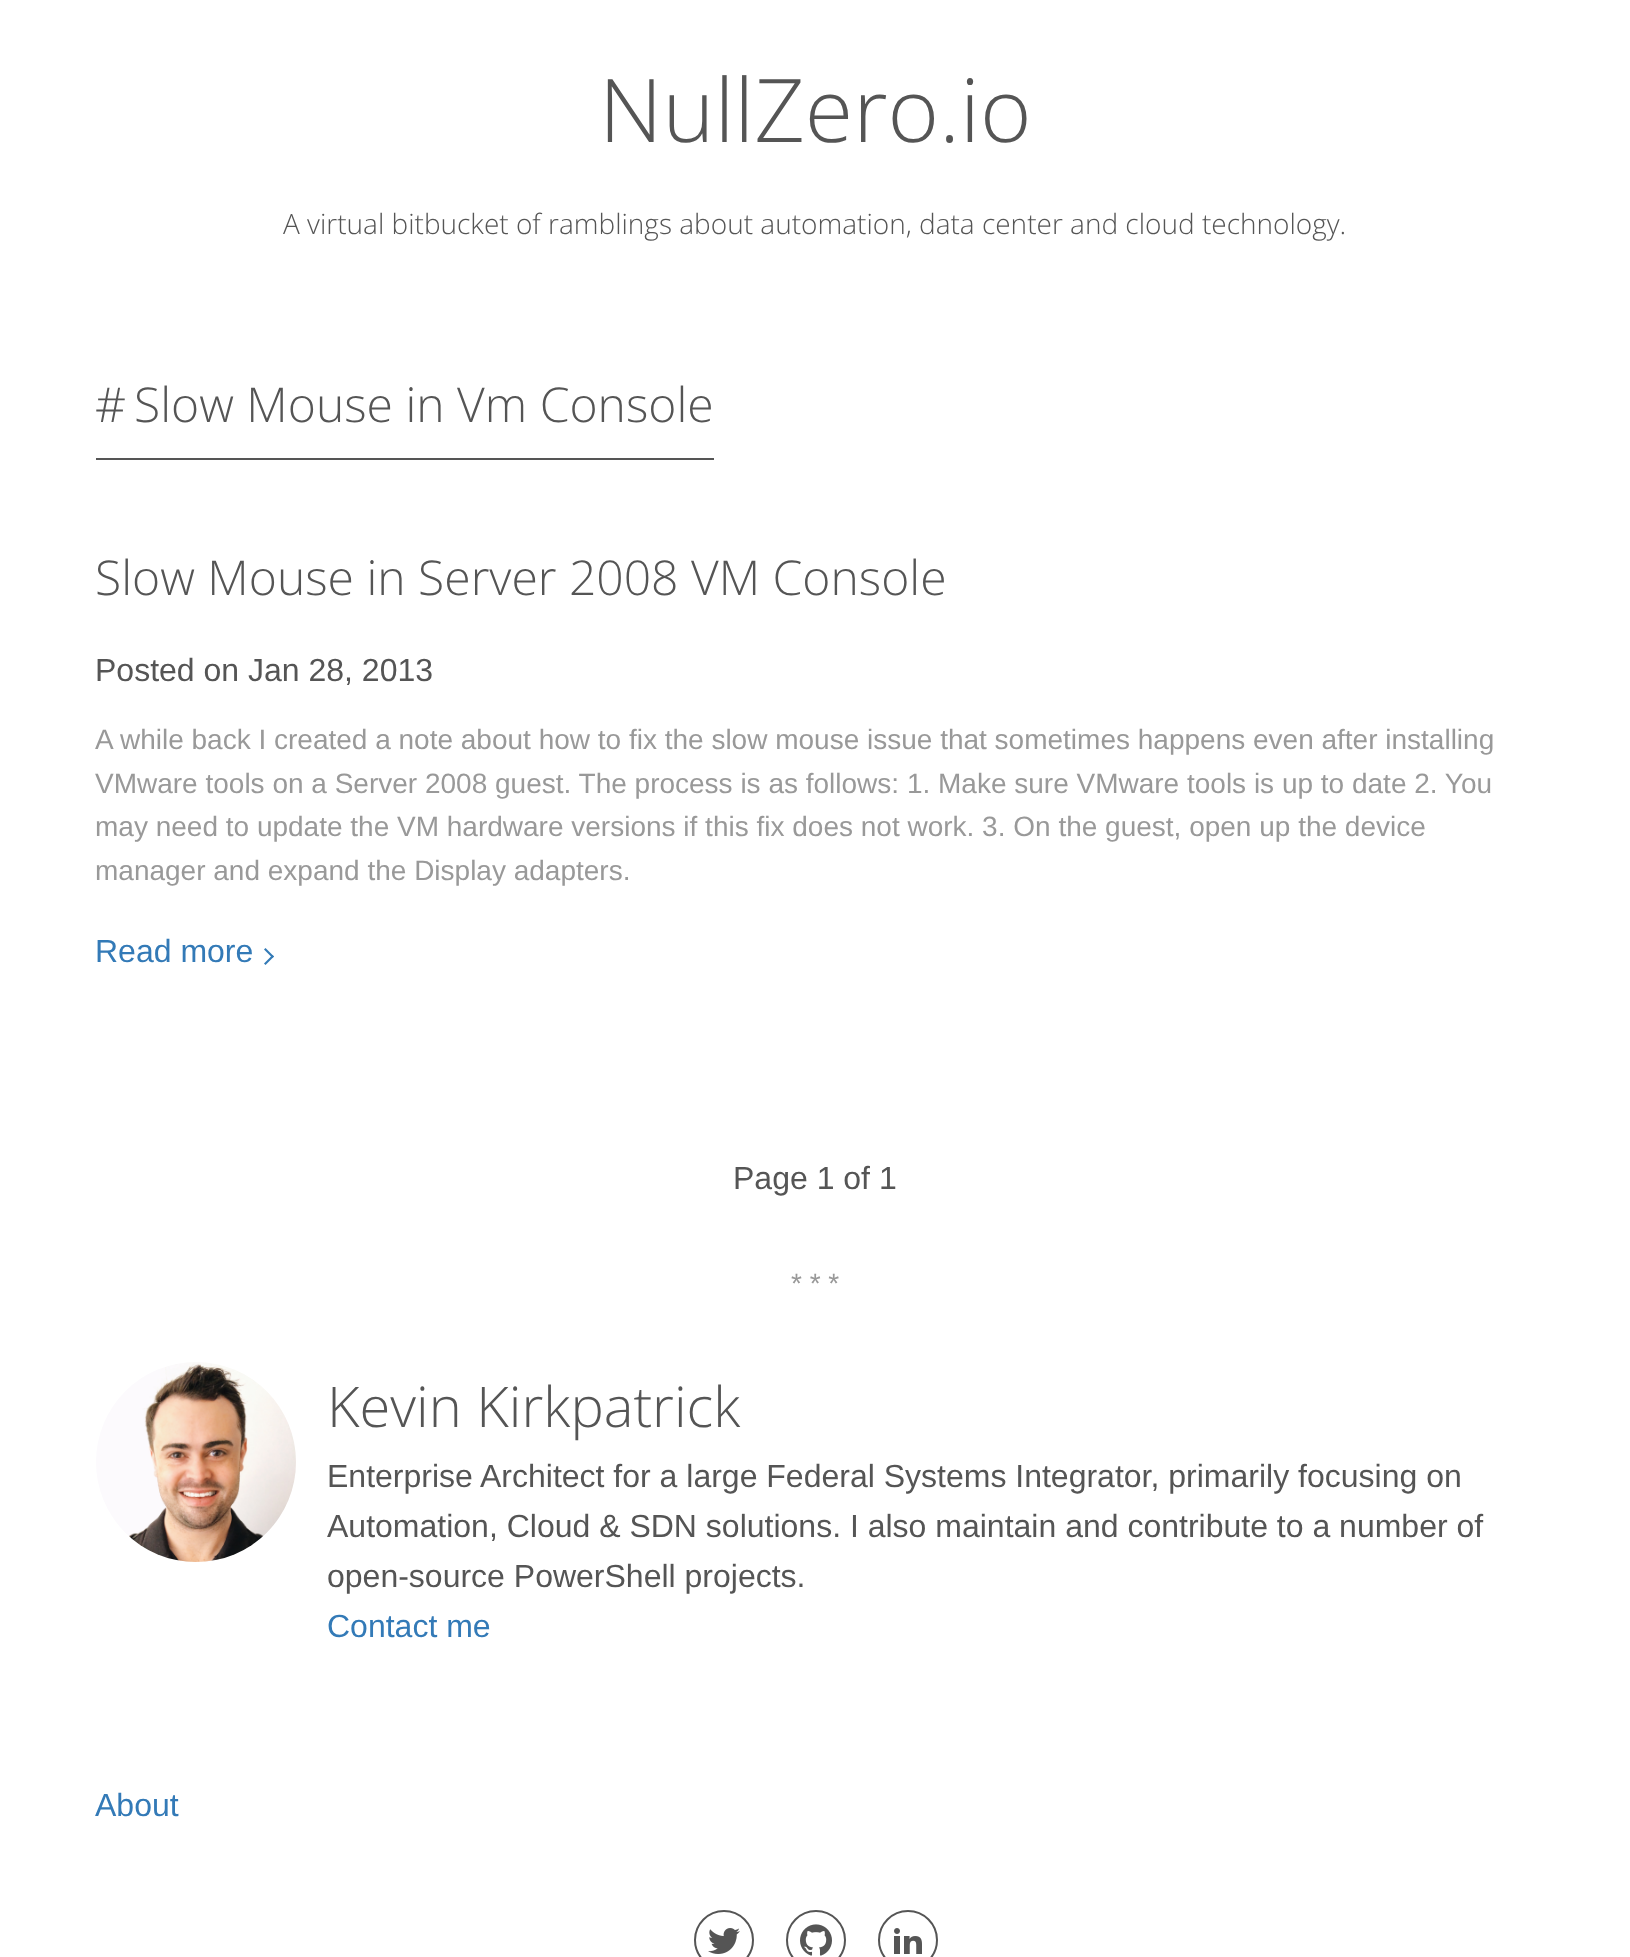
(async () => {
  const canvas = document.querySelector("canvas");
  canvas.width = 1630;
  canvas.height = 1957;
  const ctx = canvas.getContext("2d");
  ctx.miterLimit = 4;
  ctx.fontKerning = "normal";
  async function loadImage(src) {
    const img = new Image();
    img.src = src;
    await img.decode();
    return img;
  }
  let path;

  ctx.fillStyle = "#ffffff";
  ctx.fillRect(0, 0, 1630, 1957);
  ctx.fillStyle = "#555555";
  ctx.fillRect(96, 458, 618, 2);
  ctx.fillStyle = "#337ab7";
  path = new Path2D("M265.5 948L274 956.5L272.5 958L264 949.5Z");
  ctx.fill(path);
  path = new Path2D("M272.5 955L274 956.5L265.5 965L264 963.5Z");
  ctx.fill(path);
  ctx.drawImage(await loadImage("img/1.png"), 96, 1362, 200, 200);
  ctx.beginPath();
  ctx.arc(724, 1940, 29, 0, Math.PI * 2);
  ctx.strokeStyle = "#555555";
  ctx.lineWidth = 2;
  ctx.stroke();
  ctx.drawImage(await loadImage("img/2.png"), 708, 1928, 32, 26);
  ctx.beginPath();
  ctx.arc(816, 1940, 29, 0, Math.PI * 2);
  ctx.stroke();
  ctx.drawImage(await loadImage("img/3.png"), 800, 1924, 32, 32);
  ctx.beginPath();
  ctx.arc(908, 1940, 29, 0, Math.PI * 2);
  ctx.stroke();
  ctx.drawImage(await loadImage("img/4.png"), 894, 1928, 28, 26);
  ctx.font = "300 88px Open Sans";
  ctx.fillStyle = "#555555";
  ctx.fillText("NullZero.io", 599, 142);
  ctx.font = "300 28px Open Sans";
  ctx.fillText("A virtual bitbucket of ramblings about automation, data center and cloud technology.", 283, 234);
  ctx.font = "300 48px Open Sans";
  for (const [text, x, y] of [
    ["#", 95, 422],
    ["Slow Mouse in Vm Console", 134, 422],
    ["Slow Mouse in Server 2008 VM Console", 95, 595],
  ]) {
    ctx.fillText(text, x, y);
  }
  ctx.font = "32px Liberation Sans";
  ctx.fillText("Posted on Jan 28, 2013", 95, 681);
  ctx.font = "28px Liberation Sans";
  ctx.fillStyle = "#999999";
  for (const [text, x, y] of [
    ["A while back I created a note about how to fix the slow mouse issue that sometimes happens even after installing", 95, 749],
    ["VMware tools on a Server 2008 guest. The process is as follows: 1. Make sure VMware tools is up to date 2. You", 95, 793],
    ["may need to update the VM hardware versions if this fix does not work. 3. On the guest, open up the device", 95, 836],
    ["manager and expand the Display adapters.", 95, 880],
  ]) {
    ctx.fillText(text, x, y);
  }
  ctx.font = "32px Liberation Sans";
  ctx.fillStyle = "#337ab7";
  ctx.fillText("Read more", 95, 962);
  ctx.fillStyle = "#555555";
  ctx.fillText("Page 1 of 1", 733, 1189);
  ctx.font = "28px Liberation Sans";
  ctx.fillStyle = "#999999";
  ctx.fillText("* * *", 791, 1293);
  ctx.font = "300 56px Open Sans";
  ctx.fillStyle = "#555555";
  ctx.fillText("Kevin Kirkpatrick", 327, 1427);
  ctx.font = "32px Liberation Sans";
  for (const [text, x, y] of [
    ["Enterprise Architect for a large Federal Systems Integrator, primarily focusing on", 327, 1487],
    ["Automation, Cloud & SDN solutions. I also maintain and contribute to a number of", 327, 1537],
    ["open-source PowerShell projects.", 327, 1587],
  ]) {
    ctx.fillText(text, x, y);
  }
  ctx.fillStyle = "#337ab7";
  ctx.fillText("Contact me", 327, 1637);
  ctx.fillText("About", 95, 1816);
})();
